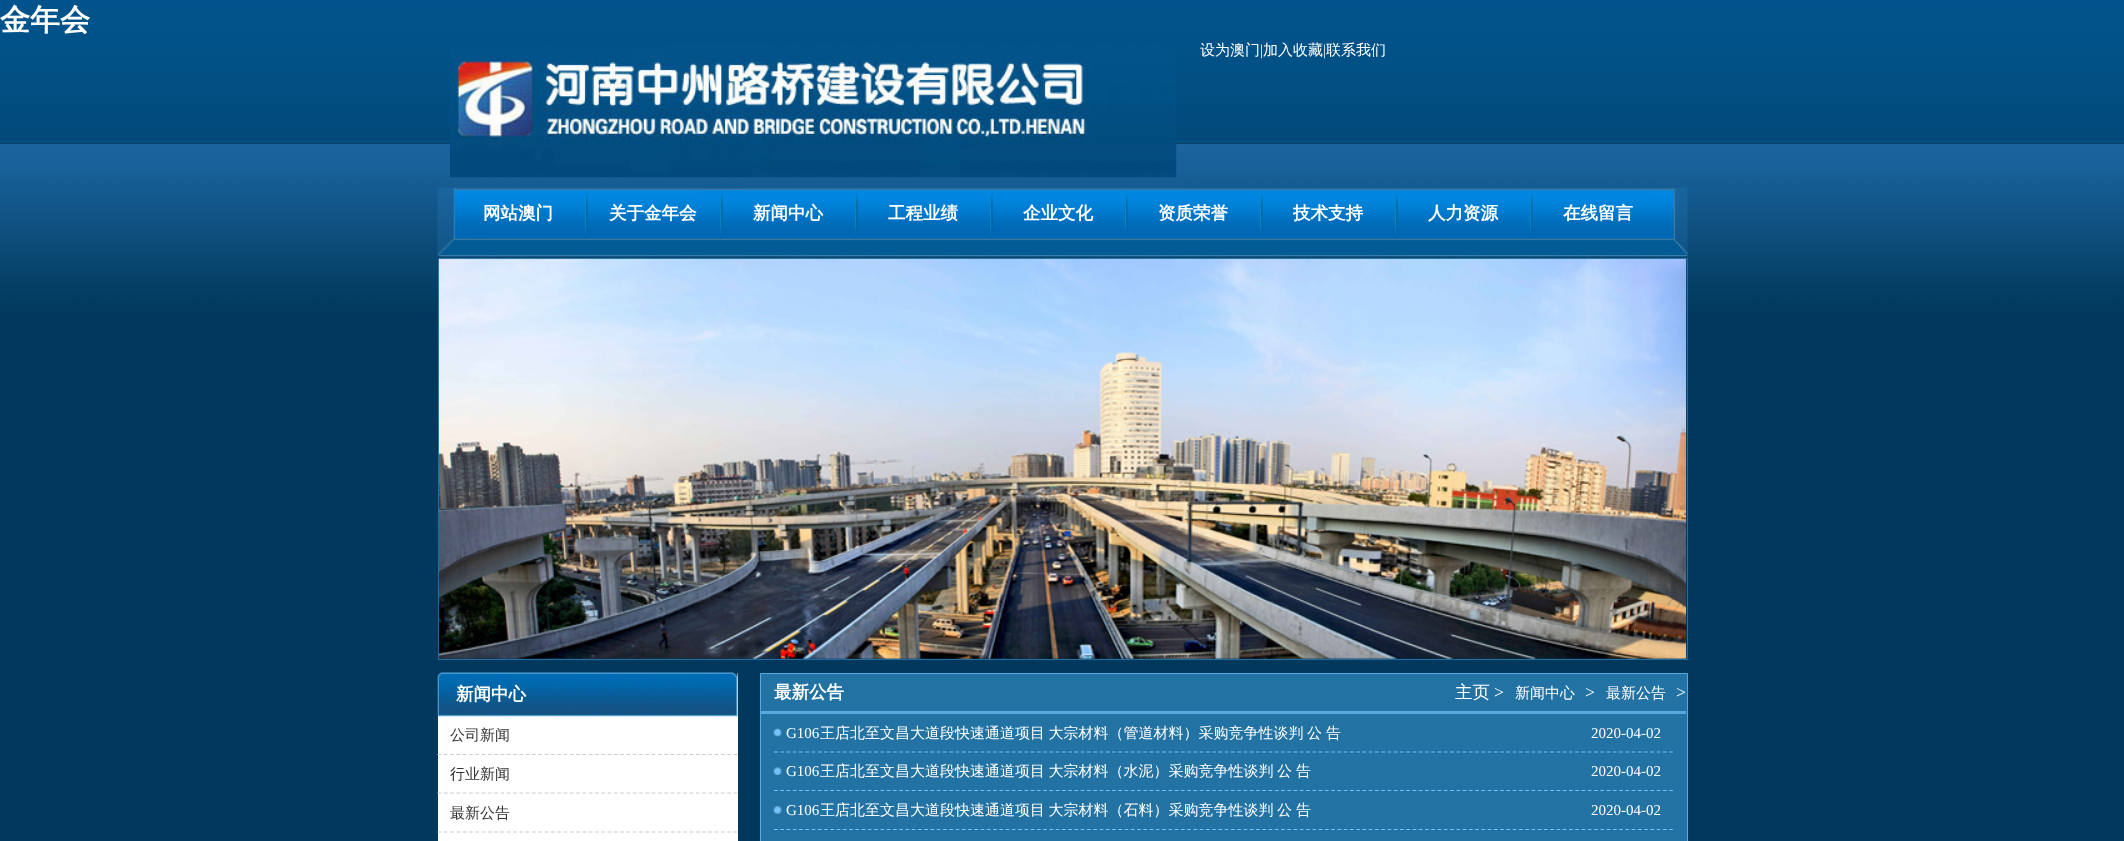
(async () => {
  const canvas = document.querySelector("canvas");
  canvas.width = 2124;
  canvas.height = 841;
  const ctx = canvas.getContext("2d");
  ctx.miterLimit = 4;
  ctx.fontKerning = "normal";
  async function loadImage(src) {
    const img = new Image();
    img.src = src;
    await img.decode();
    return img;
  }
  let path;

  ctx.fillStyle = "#01385b";
  ctx.fillRect(0, 0, 2124, 841);
  ctx.drawImage(await loadImage("img/1.png"), 0, 0, 2124, 312);
  ctx.drawImage(await loadImage("img/2.png"), 450, 45, 727, 133);
  ctx.drawImage(await loadImage("img/3.png"), 437, 187, 1251, 70);
  ctx.drawImage(await loadImage("img/4.png"), 585, 191, 3, 48);
  ctx.drawImage(await loadImage("img/5.png"), 720, 191, 3, 48);
  ctx.drawImage(await loadImage("img/6.png"), 855, 191, 3, 48);
  ctx.drawImage(await loadImage("img/7.png"), 990, 191, 3, 48);
  ctx.drawImage(await loadImage("img/8.png"), 1125, 191, 3, 48);
  ctx.drawImage(await loadImage("img/8.png"), 1260, 191, 3, 48);
  ctx.drawImage(await loadImage("img/7.png"), 1395, 191, 3, 48);
  ctx.drawImage(await loadImage("img/7.png"), 1530, 191, 3, 48);
  ctx.strokeStyle = "#236ea1";
  ctx.strokeRect(438.5, 258.5, 1249, 401);
  ctx.drawImage(await loadImage("img/9.png"), 438, 258, 1249, 401);
  ctx.fillStyle = "#ffffff";
  ctx.fillRect(438, 673, 300, 168);
  ctx.drawImage(await loadImage("img/10.png"), 437, 672, 301, 45);
  path = new Path2D("M437.5 754.5H737.5");
  ctx.strokeStyle = "#cccccc";
  ctx.lineWidth = 1.2;
  ctx.setLineDash([3.75, 2.55]);
  ctx.stroke(path);
  path = new Path2D("M437.5 793H737.5");
  ctx.stroke(path);
  path = new Path2D("M437.5 832H737.5");
  ctx.stroke(path);
  ctx.fillStyle = "#2272a3";
  ctx.beginPath();
  ctx.rect(760.5, 673.5, 927, 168);
  ctx.fill();
  ctx.strokeStyle = "#57a8df";
  ctx.lineWidth = 1;
  ctx.setLineDash([]);
  ctx.stroke();
  ctx.fillStyle = "#57a8df";
  ctx.fillRect(761, 711, 925, 3);
  ctx.drawImage(await loadImage("img/11.png"), 773, 728, 9, 9);
  path = new Path2D("M774 752H1674");
  ctx.strokeStyle = "#75c1fb";
  ctx.lineWidth = 1.2;
  ctx.setLineDash([3.75, 2.51]);
  ctx.stroke(path);
  ctx.drawImage(await loadImage("img/12.png"), 773, 767, 9, 8);
  path = new Path2D("M774 790.5H1674");
  ctx.stroke(path);
  ctx.drawImage(await loadImage("img/13.png"), 773, 806, 9, 8);
  path = new Path2D("M774 829.5H1674");
  ctx.stroke(path);
  ctx.font = "bold 30px WenQuanYi Zen Hei";
  ctx.fillStyle = "#ffffff";
  ctx.fillText("金年会", 0, 30);
  ctx.font = "500 15px WenQuanYi Zen Hei";
  ctx.fillText("设为澳门", 1200, 55);
  ctx.font = "15px Liberation Serif";
  ctx.fillText("|", 1260, 55);
  ctx.font = "500 15px WenQuanYi Zen Hei";
  ctx.fillText("加入收藏", 1263, 55);
  ctx.font = "15px Liberation Serif";
  ctx.fillText("|", 1323, 55);
  ctx.font = "500 15px WenQuanYi Zen Hei";
  ctx.fillText("联系我们", 1326, 55);
  ctx.font = "bold 17.5px WenQuanYi Zen Hei";
  for (const [text, x, y] of [
    ["网站澳门", 483, 219],
    ["关于金年会", 609, 219],
    ["新闻中心", 753, 219],
    ["工程业绩", 888, 219],
    ["企业文化", 1023, 219],
    ["资质荣誉", 1158, 219],
    ["技术支持", 1293, 219],
    ["人力资源", 1428, 219],
    ["在线留言", 1563, 219],
    ["新闻中心", 456, 700],
  ]) {
    ctx.fillText(text, x, y);
  }
  ctx.font = "500 15px WenQuanYi Zen Hei";
  ctx.fillStyle = "#333333";
  for (const [text, x, y] of [
    ["公司新闻", 450, 740],
    ["行业新闻", 450, 779],
    ["最新公告", 450, 818],
  ]) {
    ctx.fillText(text, x, y);
  }
  ctx.font = "bold 17.5px WenQuanYi Zen Hei";
  ctx.fillStyle = "#ffffff";
  ctx.fillText("最新公告", 774, 698);
  ctx.font = "500 17.5px WenQuanYi Zen Hei";
  ctx.fillText("主页", 1455, 698);
  ctx.font = "17.5px Liberation Serif";
  ctx.fillText(">", 1494, 698);
  ctx.font = "500 15px WenQuanYi Zen Hei";
  ctx.fillText("新闻中心", 1515, 698);
  ctx.font = "17.5px Liberation Serif";
  ctx.fillText(">", 1585, 698);
  ctx.font = "500 15px WenQuanYi Zen Hei";
  ctx.fillText("最新公告", 1606, 698);
  ctx.font = "17.5px Liberation Serif";
  ctx.fillText(">", 1676, 698);
  ctx.font = "15px Liberation Serif";
  ctx.fillText("G106", 786, 738);
  ctx.wordSpacing = "-1px";
  ctx.font = "500 15px WenQuanYi Zen Hei";
  ctx.fillText("王店北至文昌大道段快速通道项目 大宗材料（管道材料）采购竞争性谈判 公", 820, 738);
  ctx.wordSpacing = "0px";
  ctx.fillText("告", 1326, 738);
  ctx.font = "15px Liberation Serif";
  ctx.fillText("2020-04-02", 1591, 738);
  ctx.fillText("G106", 786, 776);
  ctx.wordSpacing = "-1px";
  ctx.font = "500 15px WenQuanYi Zen Hei";
  ctx.fillText("王店北至文昌大道段快速通道项目 大宗材料（水泥）采购竞争性谈判 公", 820, 776);
  ctx.wordSpacing = "0px";
  ctx.fillText("告", 1296, 776);
  ctx.font = "15px Liberation Serif";
  ctx.fillText("2020-04-02", 1591, 776);
  ctx.fillText("G106", 786, 815);
  ctx.wordSpacing = "-1px";
  ctx.font = "500 15px WenQuanYi Zen Hei";
  ctx.fillText("王店北至文昌大道段快速通道项目 大宗材料（石料）采购竞争性谈判 公", 820, 815);
  ctx.wordSpacing = "0px";
  ctx.fillText("告", 1296, 815);
  ctx.font = "15px Liberation Serif";
  ctx.fillText("2020-04-02", 1591, 815);
})();
